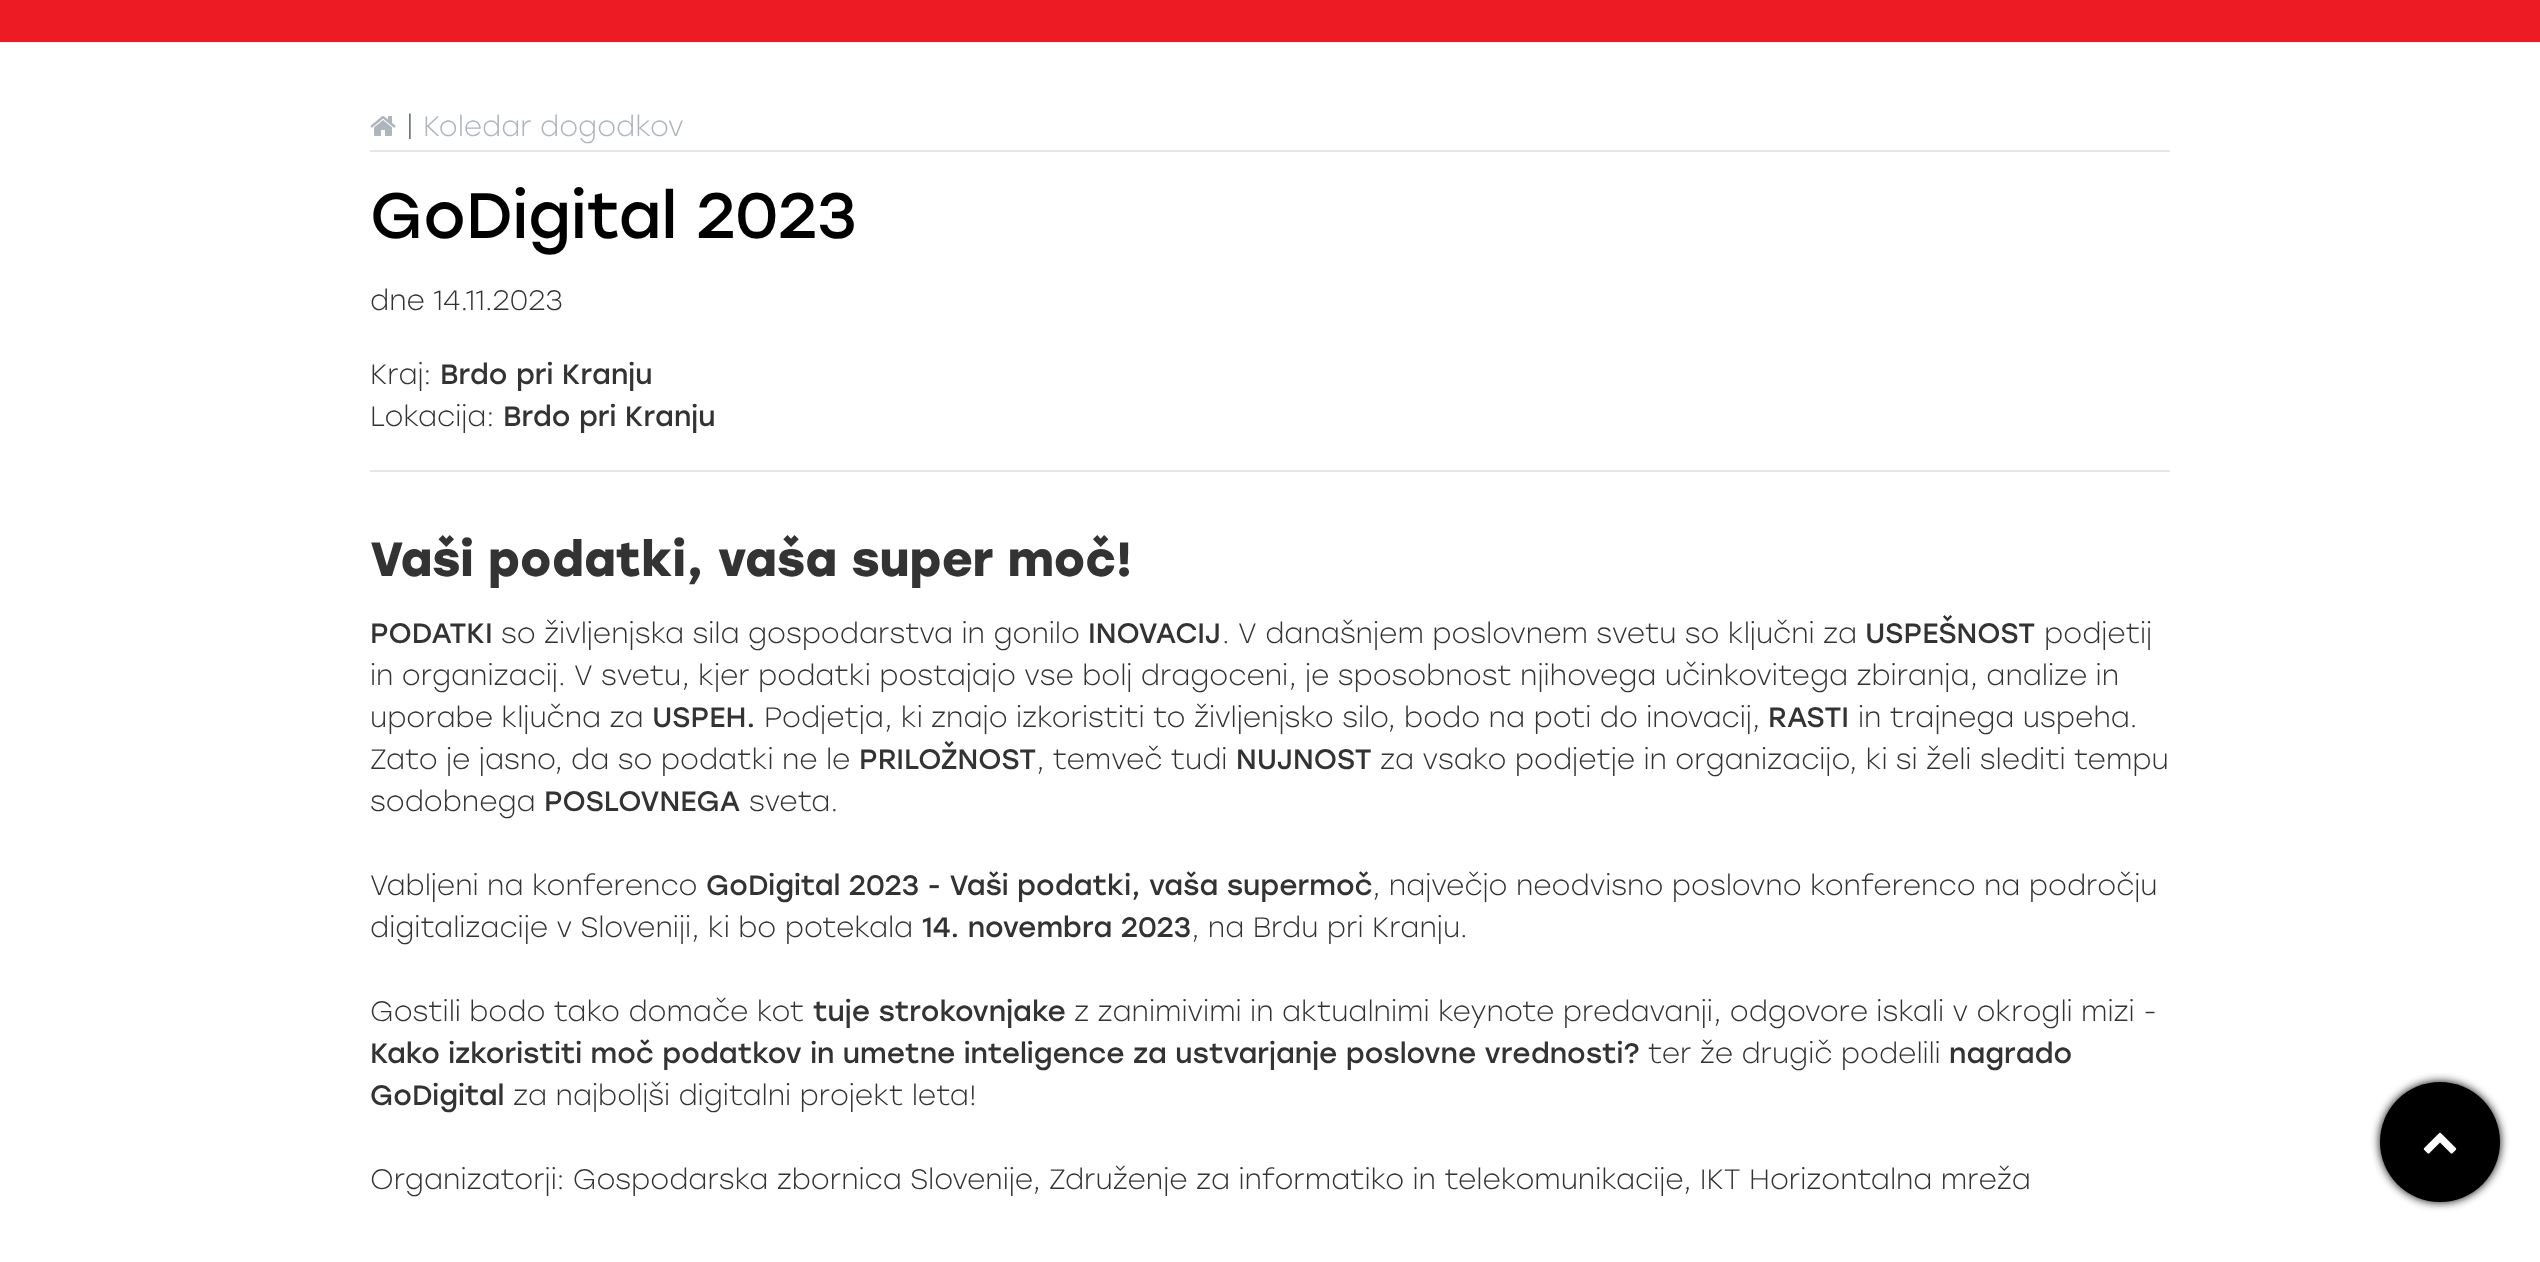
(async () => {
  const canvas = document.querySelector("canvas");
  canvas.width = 2540;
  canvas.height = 1262;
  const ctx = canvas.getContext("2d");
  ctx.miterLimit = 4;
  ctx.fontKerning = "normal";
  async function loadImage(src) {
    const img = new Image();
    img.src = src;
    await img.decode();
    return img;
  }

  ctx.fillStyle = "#ffffff";
  ctx.fillRect(0, 0, 2540, 1262);
  ctx.fillStyle = "#ed1c24";
  ctx.fillRect(0, 0, 2540, 42);
  ctx.drawImage(await loadImage("img/1.png"), 370, 116, 26, 20);
  ctx.fillStyle = "#e6e6e6";
  ctx.fillRect(370, 150, 1800, 2);
  ctx.fillRect(370, 470, 1800, 2);
  ctx.fillStyle = "#000000";
  ctx.filter = "blur(5px)";
  ctx.beginPath();
  ctx.roundRect(2380, 1082, 120, 120, 60);
  ctx.fill();
  ctx.filter = "none";
  ctx.beginPath();
  ctx.arc(2440, 1142, 60, 0, Math.PI * 2);
  ctx.fill();
  ctx.drawImage(await loadImage("img/2.png"), 2423, 1132, 34, 22);
  ctx.font = "300 32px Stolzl";
  ctx.fillStyle = "#6c757d";
  ctx.fillText("|", 406, 136);
  ctx.font = "300 28px Stolzl";
  ctx.fillStyle = "#adb5bd";
  ctx.fillText("Koledar dogodkov", 423, 136);
  ctx.font = "64px Stolzl";
  ctx.fillStyle = "#000000";
  ctx.fillText("GoDigital 2023", 370, 238);
  ctx.font = "300 28px Stolzl";
  ctx.fillStyle = "#333333";
  ctx.fillText("dne 14.11.2023", 370, 310);
  ctx.fillText("Kraj:", 370, 384);
  ctx.font = "28px Stolzl";
  ctx.fillText("Brdo pri Kranju", 440, 384);
  ctx.font = "300 28px Stolzl";
  ctx.fillText("Lokacija:", 370, 426);
  ctx.font = "28px Stolzl";
  ctx.fillText("Brdo pri Kranju", 503, 426);
  ctx.font = "bold 48px Stolzl";
  ctx.fillText("Vaši podatki, vaša super moč!", 370, 576);
  ctx.font = "28px Stolzl";
  ctx.fillText("PODATKI", 370, 643);
  ctx.font = "300 28px Stolzl";
  ctx.fillText("so življenjska sila gospodarstva in gonilo", 501, 643);
  ctx.font = "28px Stolzl";
  ctx.fillText("INOVACIJ", 1088, 643);
  ctx.font = "300 28px Stolzl";
  ctx.fillText(". V današnjem poslovnem svetu so ključni za", 1222, 643);
  ctx.font = "28px Stolzl";
  ctx.fillText("USPEŠNOST", 1865, 643);
  ctx.font = "300 28px Stolzl";
  for (const [text, x, y] of [
    ["podjetij", 2044, 643],
    ["in organizacij. V svetu, kjer podatki postajajo vse bolj dragoceni, je sposobnost njihovega učinkovitega zbiranja, analize in", 370, 685],
    ["uporabe ključna za", 370, 727],
  ]) {
    ctx.fillText(text, x, y);
  }
  ctx.font = "28px Stolzl";
  ctx.fillText("USPEH.", 652, 727);
  ctx.font = "300 28px Stolzl";
  ctx.fillText("Podjetja, ki znajo izkoristiti to življenjsko silo, bodo na poti do inovacij,", 764, 727);
  ctx.font = "28px Stolzl";
  ctx.fillText("RASTI", 1768, 727);
  ctx.font = "300 28px Stolzl";
  ctx.fillText("in trajnega uspeha.", 1858, 727);
  ctx.fillText("Zato je jasno, da so podatki ne le", 370, 769);
  ctx.font = "28px Stolzl";
  ctx.fillText("PRILOŽNOST", 859, 769);
  ctx.font = "300 28px Stolzl";
  ctx.fillText(", temveč tudi", 1036, 769);
  ctx.font = "28px Stolzl";
  ctx.fillText("NUJNOST", 1236, 769);
  ctx.font = "300 28px Stolzl";
  ctx.fillText("za vsako podjetje in organizacijo, ki si želi slediti tempu", 1380, 769);
  ctx.fillText("sodobnega", 370, 811);
  ctx.font = "28px Stolzl";
  ctx.fillText("POSLOVNEGA", 544, 811);
  ctx.font = "300 28px Stolzl";
  ctx.fillText("sveta.", 749, 811);
  ctx.fillText("Vabljeni na konferenco", 370, 895);
  ctx.font = "28px Stolzl";
  ctx.fillText("GoDigital 2023 - Vaši podatki, vaša supermoč", 706, 895);
  ctx.font = "300 28px Stolzl";
  ctx.fillText(", največjo neodvisno poslovno konferenco na področju", 1372, 895);
  ctx.fillText("digitalizacije v Sloveniji, ki bo potekala", 370, 937);
  ctx.font = "28px Stolzl";
  ctx.fillText("14. novembra 2023", 922, 937);
  ctx.font = "300 28px Stolzl";
  ctx.fillText(", na Brdu pri Kranju.", 1191, 937);
  ctx.fillText("Gostili bodo tako domače kot", 370, 1021);
  ctx.font = "28px Stolzl";
  ctx.fillText("tuje strokovnjake", 813, 1021);
  ctx.font = "300 28px Stolzl";
  ctx.fillText("z zanimivimi in aktualnimi keynote predavanji, odgovore iskali v okrogli mizi -", 1074, 1021);
  ctx.font = "28px Stolzl";
  ctx.fillText("Kako izkoristiti moč podatkov in umetne inteligence za ustvarjanje poslovne vrednosti?", 370, 1063);
  ctx.font = "300 28px Stolzl";
  ctx.fillText("ter že drugič podelili", 1648, 1063);
  ctx.font = "28px Stolzl";
  ctx.fillText("nagrado", 1949, 1063);
  ctx.fillText("GoDigital", 370, 1105);
  ctx.font = "300 28px Stolzl";
  ctx.fillText("za najboljši digitalni projekt leta!", 513, 1105);
  ctx.fillText("Organizatorji: Gospodarska zbornica Slovenije, Združenje za informatiko in telekomunikacije, IKT Horizontalna mreža", 370, 1189);
})();
